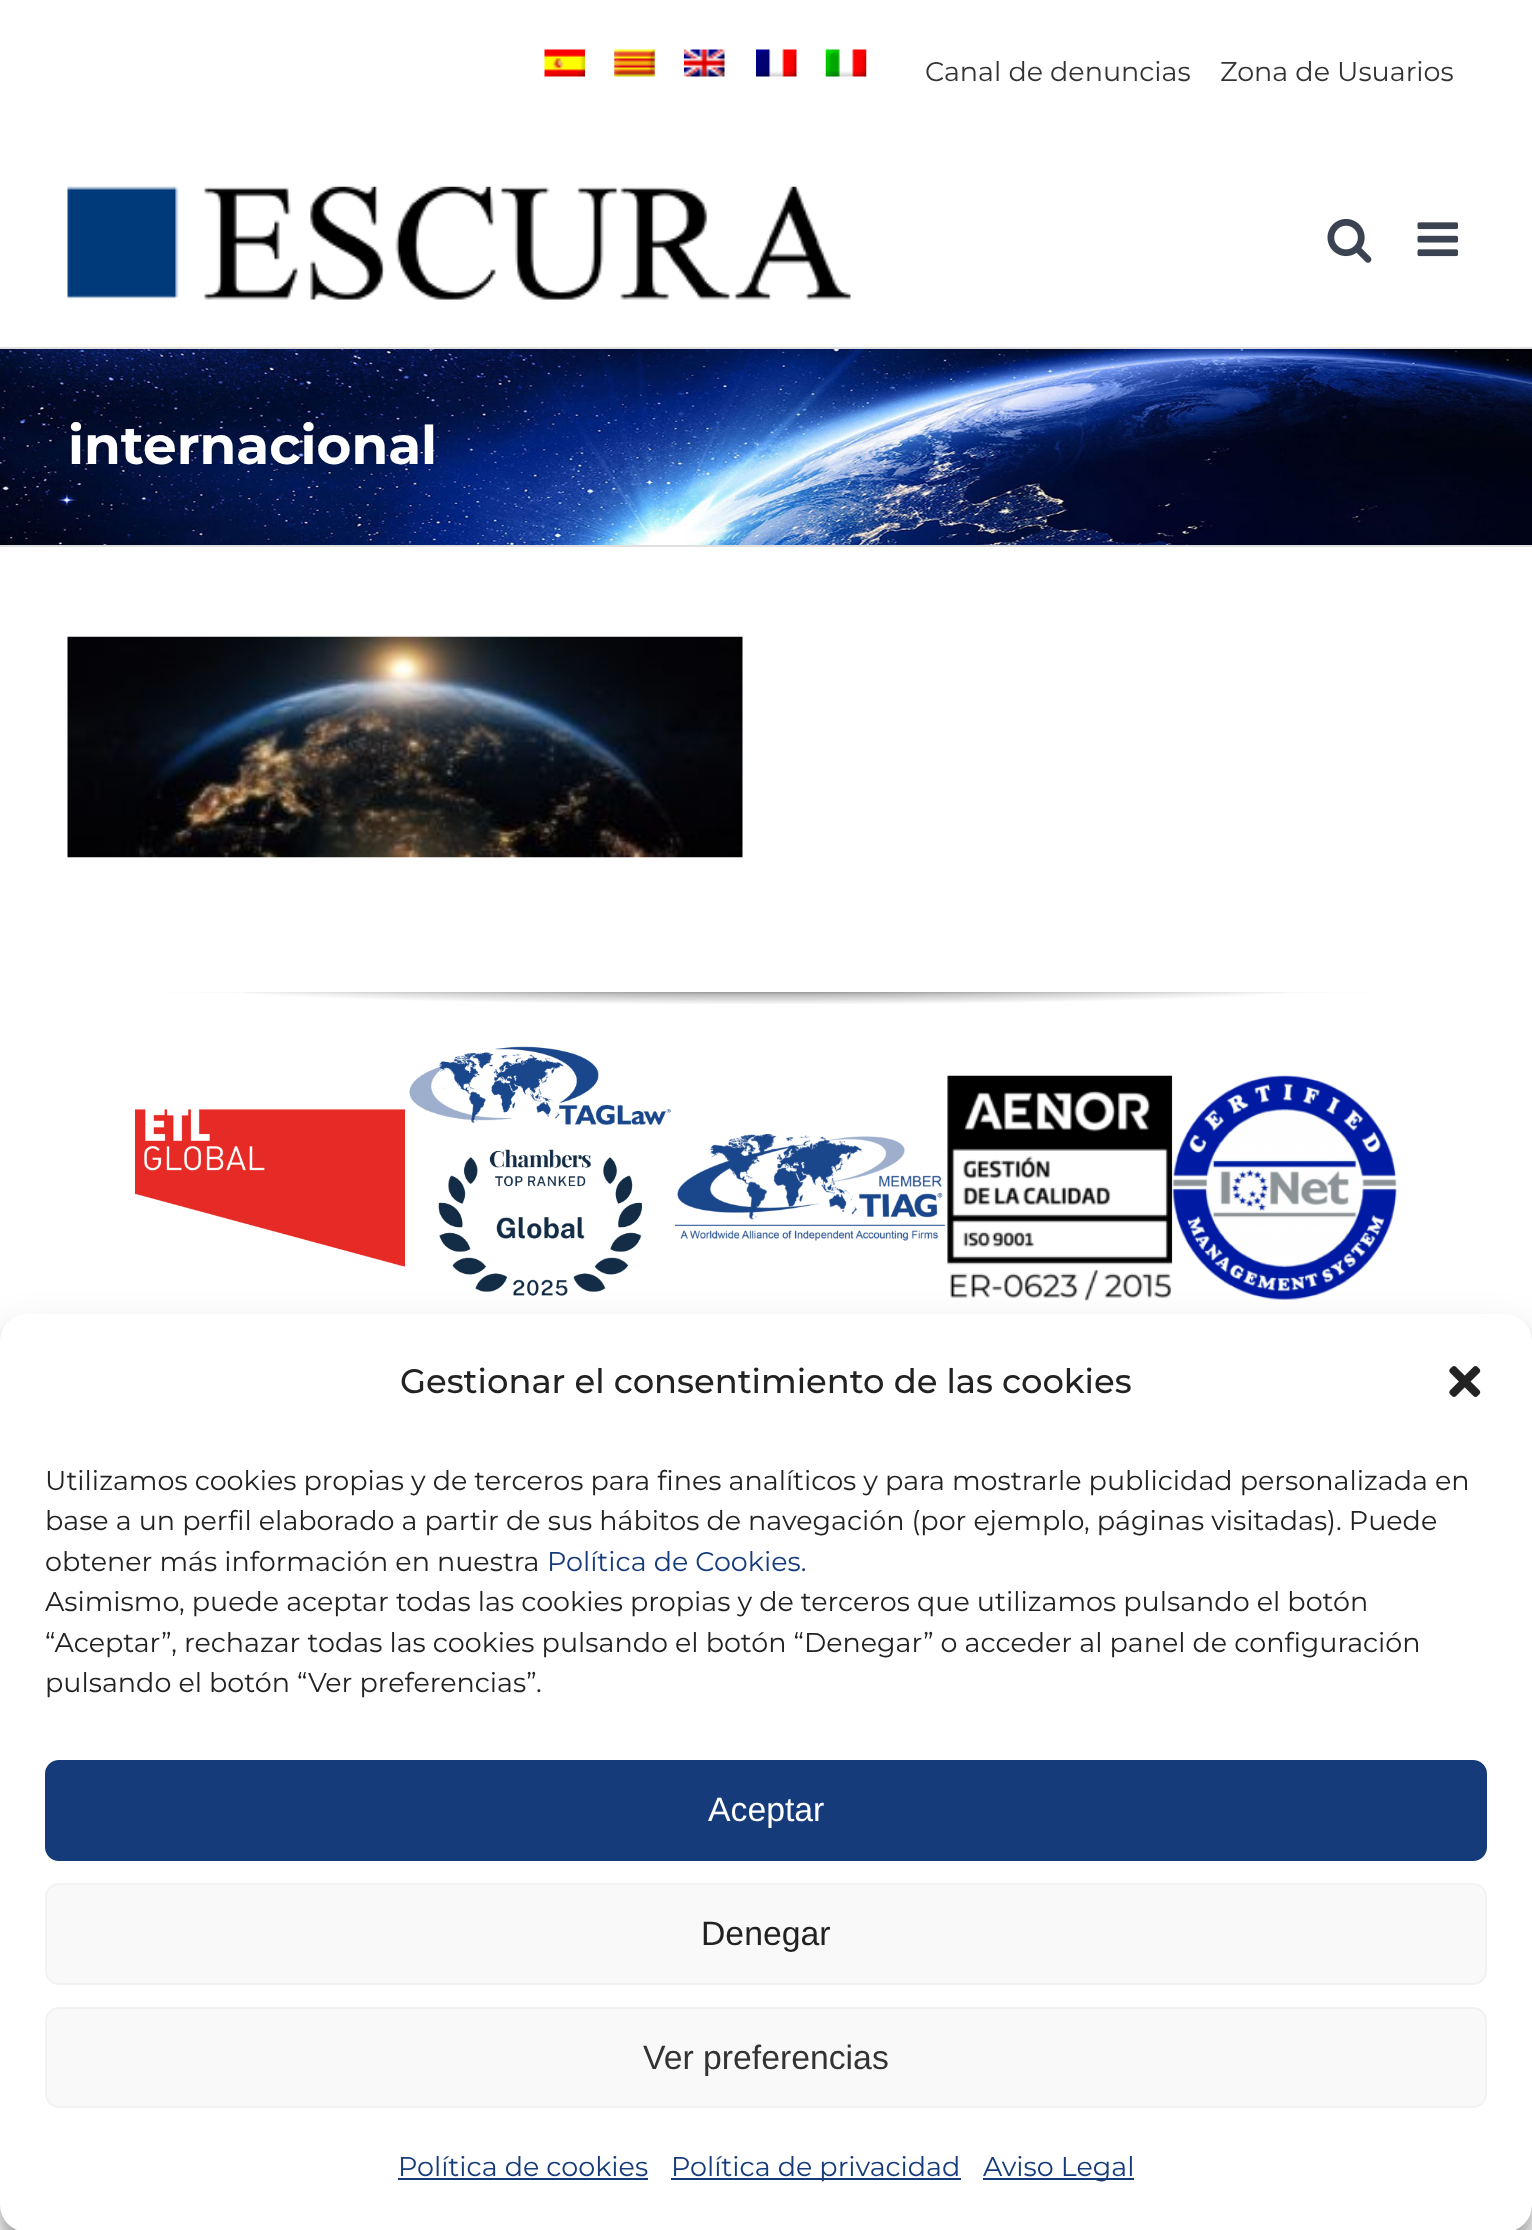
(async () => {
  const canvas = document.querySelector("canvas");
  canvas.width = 1532;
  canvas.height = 2230;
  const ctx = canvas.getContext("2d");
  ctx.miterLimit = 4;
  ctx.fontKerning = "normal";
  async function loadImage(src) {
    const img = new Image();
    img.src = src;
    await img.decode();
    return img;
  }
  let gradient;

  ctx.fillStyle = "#ffffff";
  ctx.fillRect(0, 0, 1532, 2230);
  ctx.drawImage(await loadImage("img/1.png"), 544, 49, 41, 28);
  ctx.drawImage(await loadImage("img/2.png"), 614, 49, 41, 28);
  ctx.drawImage(await loadImage("img/3.png"), 684, 49, 41, 28);
  ctx.drawImage(await loadImage("img/4.png"), 756, 49, 41, 28);
  ctx.drawImage(await loadImage("img/5.png"), 825, 49, 42, 28);
  ctx.drawImage(await loadImage("img/6.png"), 67, 186, 784, 114);
  ctx.drawImage(await loadImage("img/7.png"), 1327, 218, 45, 45);
  ctx.drawImage(await loadImage("img/8.png"), 1417, 222, 41, 35);
  ctx.drawImage(await loadImage("img/9.png"), 0, 349, 1532, 196);
  ctx.fillStyle = "#e0e0e0";
  ctx.fillRect(0, 347, 1532, 2);
  ctx.fillRect(0, 545, 1532, 2);
  ctx.drawImage(await loadImage("img/10.png"), 67, 636, 676, 222);
  gradient = ctx.createRadialGradient(766, 184367.29, 0, 766, 184367.29, 893);
  gradient.addColorStop(0, "#e0dede");
  gradient.addColorStop(0.8, "#ffffff");
  ctx.fillStyle = gradient;
  ctx.beginPath();
  ctx.rect(164, 992, 1204, 2);
  ctx.save();
  ctx.clip();
  ctx.scale(1, 4.8 / 893);
  ctx.fillRect(0, 0, 1532, 414873);
  ctx.restore();
  gradient = ctx.createRadialGradient(766, 30362, 0, 766, 30362, 893);
  gradient.addColorStop(0, "rgba(0, 0, 0, 0.5)");
  gradient.addColorStop(0.65, "rgba(0, 0, 0, 0)");
  ctx.fillStyle = gradient;
  ctx.beginPath();
  ctx.rect(245, 992, 1042, 12);
  ctx.save();
  ctx.clip();
  ctx.scale(1, 29 / 893);
  ctx.fillRect(0, 0, 1532, 68669);
  ctx.restore();
  ctx.drawImage(await loadImage("img/11.png"), 135, 1109, 270, 158);
  ctx.drawImage(await loadImage("img/12.png"), 409, 1046, 262, 250);
  ctx.drawImage(await loadImage("img/13.png"), 675, 1134, 270, 107);
  ctx.drawImage(await loadImage("img/14.png"), 947, 1075, 226, 226);
  ctx.drawImage(await loadImage("img/15.png"), 1172, 1075, 225, 225);
  ctx.fillStyle = "rgba(0, 0, 0, 0.23)";
  ctx.filter = "blur(7px)";
  ctx.beginPath();
  ctx.roundRect(0, 1328, 1532, 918, 27);
  ctx.fill();
  ctx.filter = "none";
  ctx.fillStyle = "rgba(0, 0, 0, 0.19)";
  ctx.filter = "blur(22.5px)";
  ctx.beginPath();
  ctx.roundRect(0, 1337, 1532, 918, 27);
  ctx.fill();
  ctx.filter = "none";
  ctx.fillStyle = "#808080";
  ctx.filter = "blur(5.5px)";
  ctx.beginPath();
  ctx.roundRect(1375, 2066, 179, 135, 5);
  ctx.fill();
  ctx.filter = "none";
  ctx.fillStyle = "#ffffff";
  ctx.beginPath();
  ctx.roundRect(0, 1314, 1532, 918, 27);
  ctx.fill();
  ctx.drawImage(await loadImage("img/16.png"), 1449, 1366, 32, 31);
  ctx.fillStyle = "#153b7a";
  ctx.beginPath();
  ctx.roundRect(46, 1761, 1440, 99, 13);
  ctx.fill();
  ctx.strokeStyle = "#153b7a";
  ctx.lineWidth = 2;
  ctx.stroke();
  ctx.fillStyle = "#f9f9f9";
  ctx.beginPath();
  ctx.roundRect(46, 1884, 1440, 100, 13);
  ctx.fill();
  ctx.strokeStyle = "#f2f2f2";
  ctx.stroke();
  ctx.beginPath();
  ctx.roundRect(46, 2008, 1440, 99, 13);
  ctx.fill();
  ctx.stroke();
  for (const [x, y, w, h, color] of [
    [398, 2178, 250, 2, "#153b7a"],
    [671, 2178, 290, 2, "#153b7a"],
    [983, 2178, 151, 2, "#153b7a"],
  ]) {
    ctx.fillStyle = color;
    ctx.fillRect(x, y, w, h);
  }
  ctx.font = "27px Montserrat";
  ctx.fillStyle = "#333333";
  ctx.fillText("Canal de denuncias", 925, 81);
  ctx.fillText("Zona de Usuarios", 1220, 81);
  ctx.font = "bold 53.25px Montserrat";
  ctx.fillStyle = "#ffffff";
  ctx.fillText("internacional", 68, 464);
  ctx.font = "500 33.75px Montserrat";
  ctx.fillStyle = "#222222";
  ctx.fillText("Gestionar el consentimiento de las cookies", 400, 1393);
  ctx.font = "27px Montserrat";
  for (const [text, x, y] of [
    ["Utilizamos cookies propias y de terceros para fines analíticos y para mostrarle publicidad personalizada en", 45, 1490],
    ["base a un perfil elaborado a partir de sus hábitos de navegación (por ejemplo, páginas visitadas). Puede", 45, 1530],
    ["obtener más información en nuestra", 45, 1571],
  ]) {
    ctx.fillText(text, x, y);
  }
  ctx.fillStyle = "#153b7a";
  ctx.fillText("Política de Cookies.", 547, 1571);
  ctx.fillStyle = "#222222";
  for (const [text, x, y] of [
    ["Asimismo, puede aceptar todas las cookies propias y de terceros que utilizamos pulsando el botón", 45, 1611],
    ["“Aceptar”, rechazar todas las cookies pulsando el botón “Denegar” o acceder al panel de configuración", 45, 1652],
    ["pulsando el botón “Ver preferencias”.", 45, 1692],
  ]) {
    ctx.fillText(text, x, y);
  }
  ctx.font = "33.75px Liberation Sans";
  ctx.fillStyle = "#ffffff";
  ctx.fillText("Aceptar", 708, 1821);
  ctx.fillStyle = "#222222";
  ctx.fillText("Denegar", 701, 1945);
  ctx.fillStyle = "#333333";
  ctx.fillText("Ver preferencias", 643, 2069);
  ctx.font = "27px Montserrat";
  ctx.fillStyle = "#153b7a";
  for (const [text, x, y] of [
    ["Política de cookies", 398, 2176],
    ["Política de privacidad", 671, 2176],
    ["Aviso Legal", 983, 2176],
  ]) {
    ctx.fillText(text, x, y);
  }
})();
